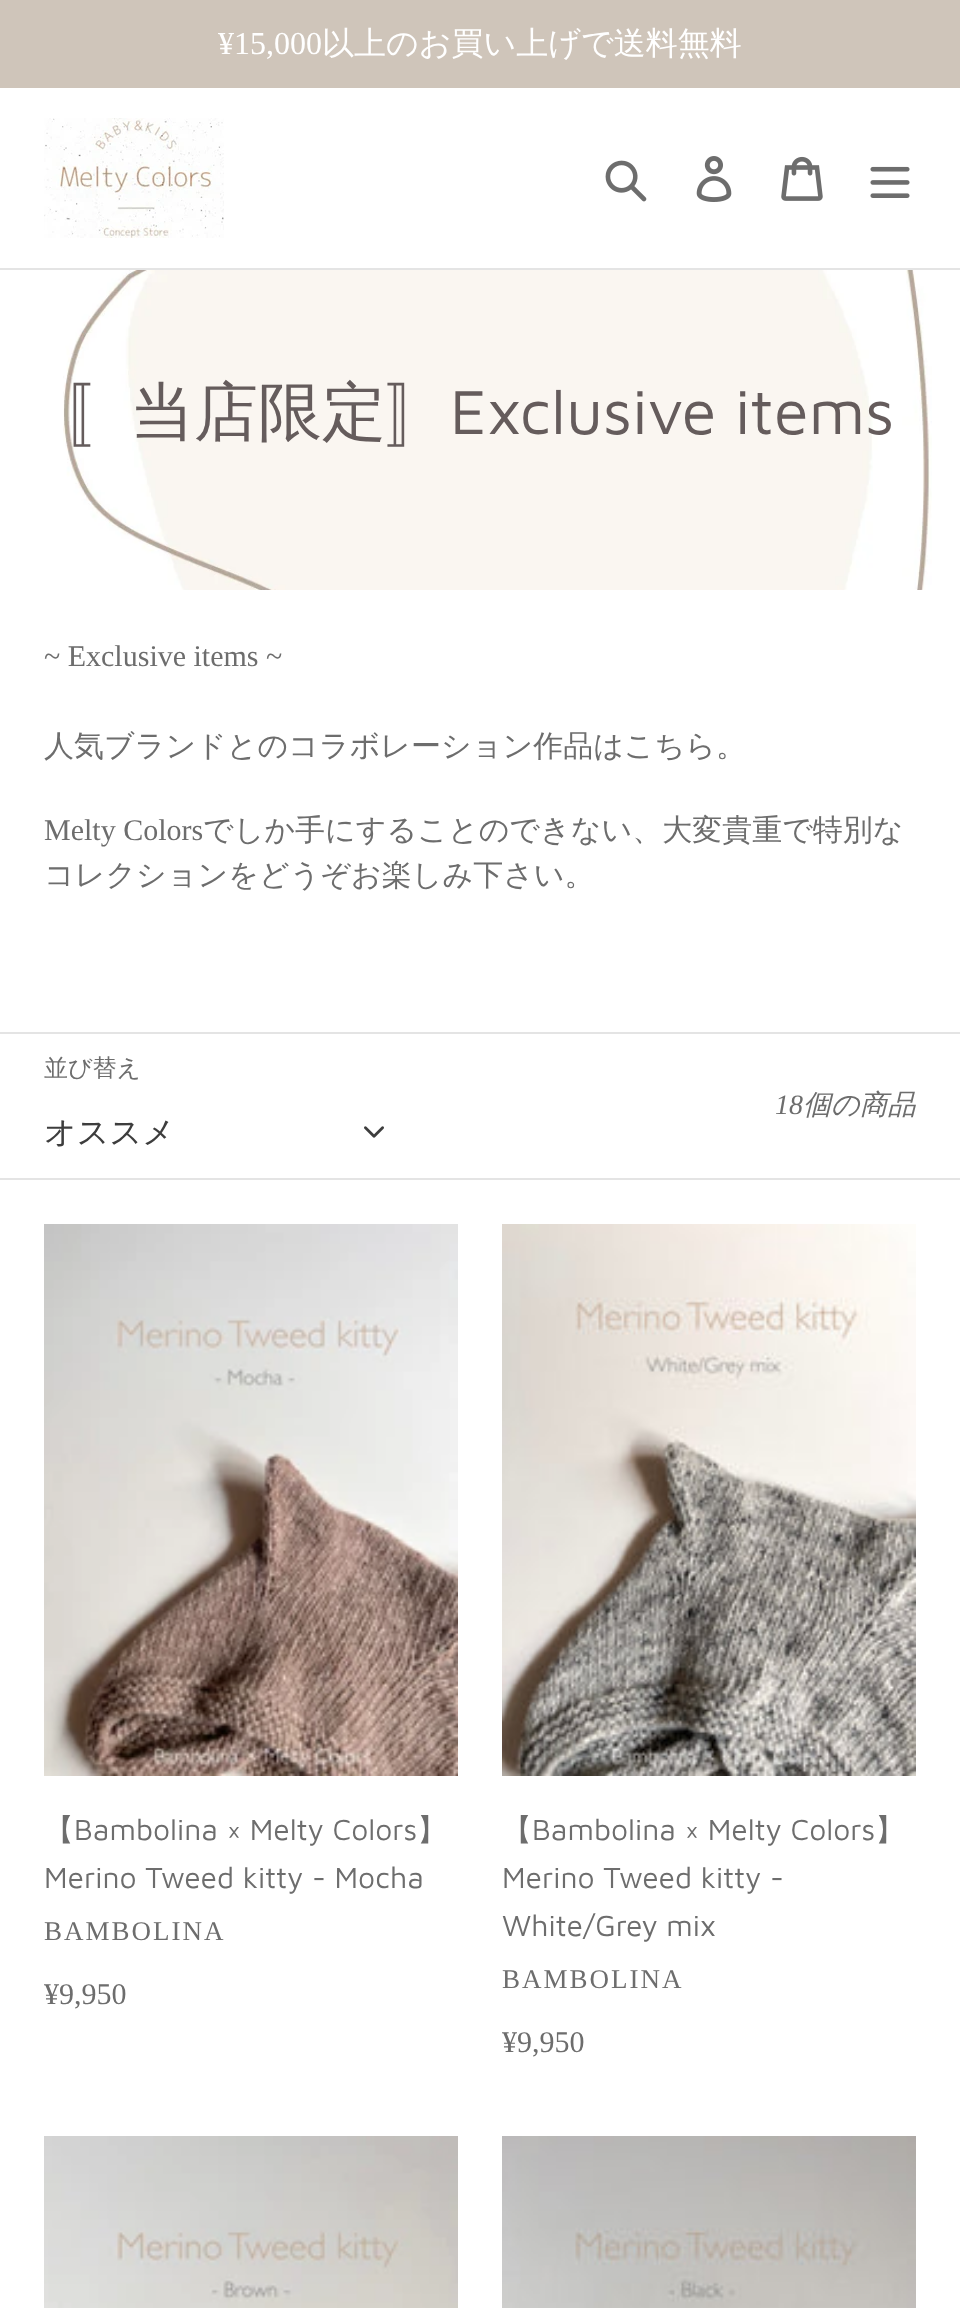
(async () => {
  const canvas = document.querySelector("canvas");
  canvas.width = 960;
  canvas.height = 2308;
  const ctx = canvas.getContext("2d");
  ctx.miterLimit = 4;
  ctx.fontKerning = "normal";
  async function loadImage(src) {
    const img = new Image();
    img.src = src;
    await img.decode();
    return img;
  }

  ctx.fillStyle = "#ffffff";
  ctx.fillRect(0, 0, 960, 2308);
  ctx.fillStyle = "#cfc5ba";
  ctx.fillRect(0, 0, 960, 88);
  ctx.fillStyle = "#e4e4e4";
  ctx.fillRect(0, 268, 960, 2);
  ctx.drawImage(await loadImage("img/1.png"), 44, 118, 180, 120);
  ctx.drawImage(await loadImage("img/2.png"), 605, 160, 42, 42);
  ctx.drawImage(await loadImage("img/3.png"), 696, 156, 36, 46);
  ctx.drawImage(await loadImage("img/4.png"), 781, 156, 42, 45);
  ctx.drawImage(await loadImage("img/5.png"), 870, 166, 40, 32);
  ctx.drawImage(await loadImage("img/6.png"), 63, 270, 869, 320);
  ctx.fillRect(0, 1032, 960, 2);
  ctx.fillRect(0, 1178, 960, 2);
  ctx.drawImage(await loadImage("img/7.png"), 364, 1126, 20, 12);
  ctx.drawImage(await loadImage("img/8.png"), 44, 1224, 414, 552);
  ctx.drawImage(await loadImage("img/9.png"), 502, 1224, 414, 552);
  ctx.drawImage(await loadImage("img/10.png"), 44, 2136, 414, 172);
  ctx.drawImage(await loadImage("img/11.png"), 502, 2136, 414, 172);
  ctx.font = "32px Liberation Serif";
  ctx.fillStyle = "#ffffff";
  ctx.fillText("¥15,000", 218, 54);
  ctx.font = "500 32px WenQuanYi Zen Hei";
  ctx.fillText("以上のお買い上げで送料無料", 322, 54);
  ctx.font = "500 64px WenQuanYi Zen Hei";
  ctx.fillStyle = "#655c5c";
  ctx.fillText("〚当店限定〛", 66, 434);
  ctx.font = "64px Maven Pro";
  ctx.fillText("Exclusive items", 450, 434);
  ctx.font = "30px Liberation Serif";
  ctx.fillStyle = "#6d6d6d";
  ctx.fillText("~ Exclusive items ~", 44, 666);
  ctx.font = "500 30px WenQuanYi Zen Hei";
  ctx.fillText("人気ブランドとのコラボレーション作品はこちら。", 44, 756);
  ctx.font = "30px Liberation Serif";
  ctx.fillText("Melty Colors", 44, 840);
  ctx.font = "500 30px WenQuanYi Zen Hei";
  ctx.fillText("でしか手にすることのできない、大変貴重で特別な", 203, 840);
  ctx.fillText("コレクションをどうぞお楽しみ下さい。", 44, 885);
  ctx.font = "500 24px WenQuanYi Zen Hei";
  ctx.fillText("並び替え", 44, 1076);
  ctx.font = "500 32px WenQuanYi Zen Hei";
  ctx.fillStyle = "#3d3d3d";
  ctx.fillText("オススメ", 44, 1143);
  ctx.font = "italic 28px Liberation Serif";
  ctx.fillStyle = "#6d6d6d";
  ctx.fillText("18", 775, 1114);
  ctx.font = "italic 500 28px WenQuanYi Zen Hei";
  ctx.fillText("個の商品", 803, 1114);
  ctx.font = "500 30px WenQuanYi Zen Hei";
  ctx.fillText("【", 44, 1840);
  ctx.font = "30px Maven Pro";
  ctx.fillText("Bambolina × Melty Colors", 74, 1840);
  ctx.font = "500 30px WenQuanYi Zen Hei";
  ctx.fillText("】", 417, 1840);
  ctx.font = "30px Maven Pro";
  ctx.fillText("Merino Tweed kitty - Mocha", 44, 1888);
  ctx.letterSpacing = "2px";
  ctx.font = "27px Liberation Serif";
  ctx.fillText("BAMBOLINA", 44, 1940);
  ctx.letterSpacing = "0px";
  ctx.font = "30px Liberation Serif";
  ctx.fillText("¥9,950", 44, 2004);
  ctx.font = "500 30px WenQuanYi Zen Hei";
  ctx.fillText("【", 502, 1840);
  ctx.font = "30px Maven Pro";
  ctx.fillText("Bambolina × Melty Colors", 532, 1840);
  ctx.font = "500 30px WenQuanYi Zen Hei";
  ctx.fillText("】", 875, 1840);
  ctx.font = "30px Maven Pro";
  ctx.fillText("Merino Tweed kitty -", 502, 1888);
  ctx.fillText("White/Grey mix", 502, 1936);
  ctx.letterSpacing = "2px";
  ctx.font = "27px Liberation Serif";
  ctx.fillText("BAMBOLINA", 502, 1988);
  ctx.letterSpacing = "0px";
  ctx.font = "30px Liberation Serif";
  ctx.fillText("¥9,950", 502, 2052);
})();
